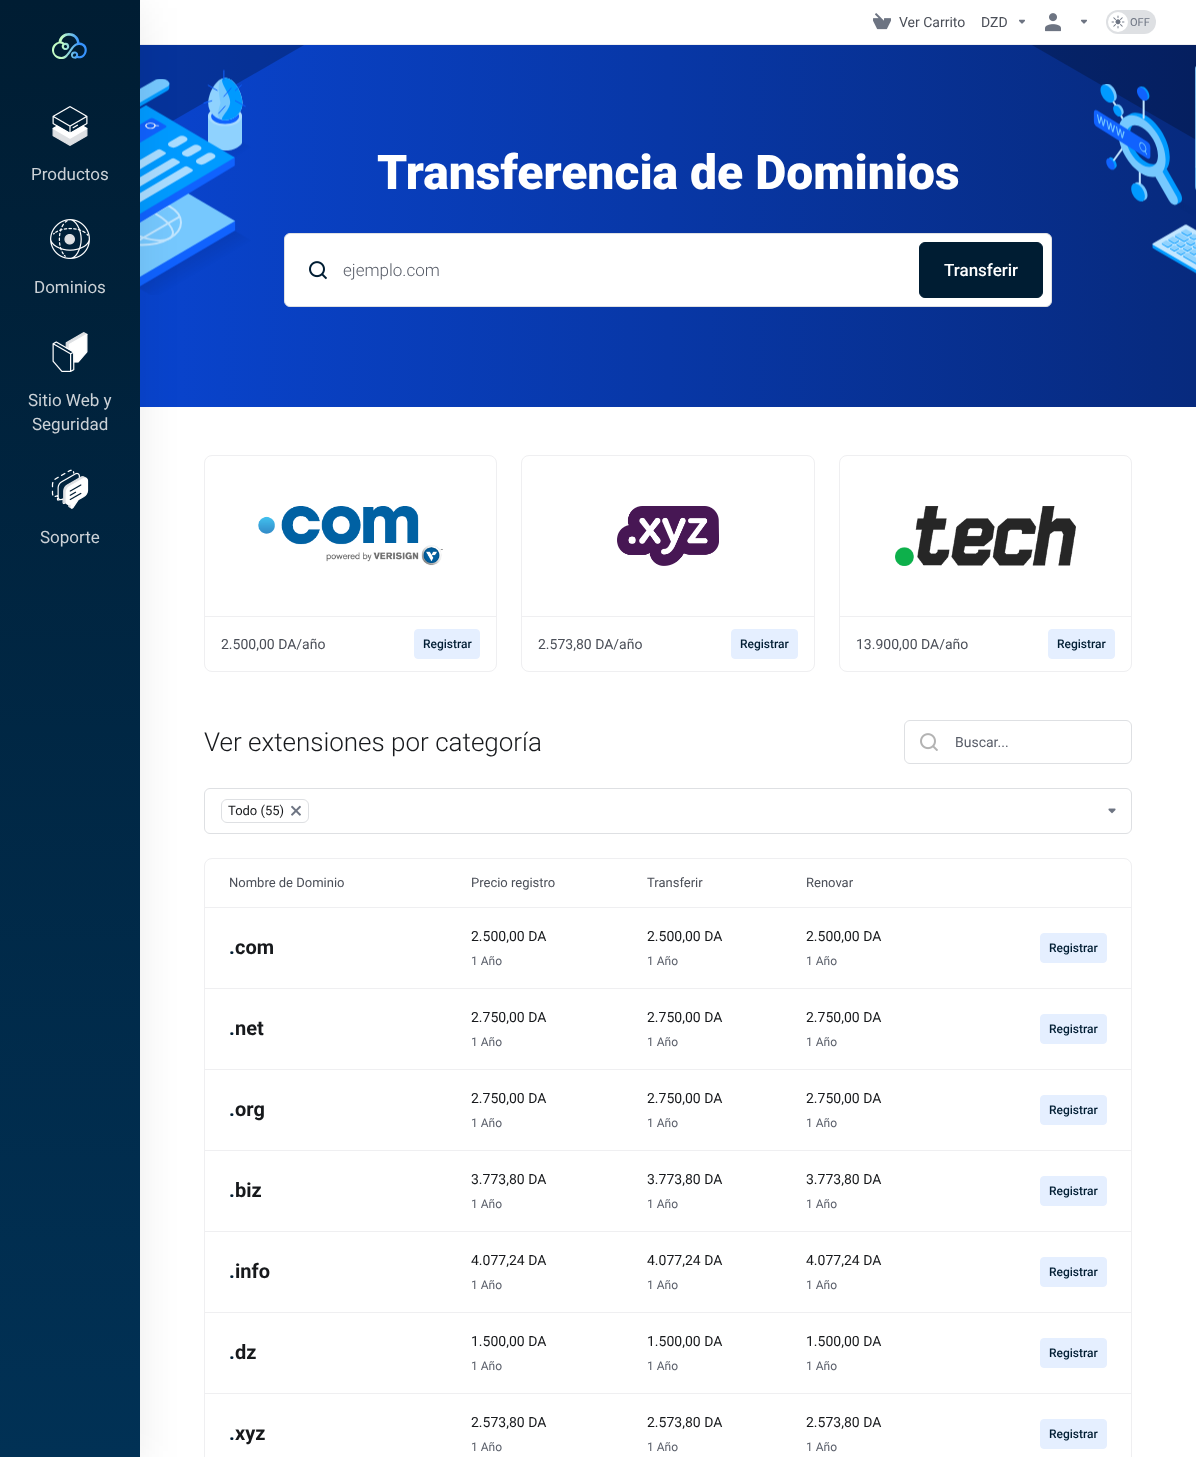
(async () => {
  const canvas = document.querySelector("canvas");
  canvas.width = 1196;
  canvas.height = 1457;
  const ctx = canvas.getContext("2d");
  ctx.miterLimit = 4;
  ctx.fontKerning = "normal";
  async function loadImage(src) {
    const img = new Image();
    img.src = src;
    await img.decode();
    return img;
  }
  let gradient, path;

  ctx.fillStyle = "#ffffff";
  ctx.fillRect(0, 0, 1196, 1457);
  ctx.fillStyle = "#efeff1";
  ctx.fillRect(140, 44, 1056, 1);
  gradient = ctx.createLinearGradient(140, 226, 1196, 226);
  gradient.addColorStop(0, "#0944ce");
  gradient.addColorStop(1, "#072a7e");
  ctx.fillStyle = gradient;
  ctx.fillRect(140, 45, 1056, 362);
  ctx.drawImage(await loadImage("img/9.png"), 140, 45, 1056, 250);
  ctx.fillStyle = "rgba(0, 0, 0, 0.08)";
  ctx.filter = "blur(20px)";
  ctx.beginPath();
  ctx.rect(0, 8, 140, 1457);
  ctx.fill();
  ctx.filter = "none";
  gradient = ctx.createLinearGradient(70, 1457, 70, 0);
  gradient.addColorStop(0, "#013155");
  gradient.addColorStop(1, "#001d33");
  ctx.fillStyle = gradient;
  ctx.fillRect(0, 0, 140, 1457);
  gradient = ctx.createLinearGradient(52, 46, 87, 46);
  gradient.addColorStop(0, "#c2fcc5");
  gradient.addColorStop(0.28, "#c2fcc5");
  gradient.addColorStop(0.29, "#c0fbc6");
  gradient.addColorStop(0.29, "#bffac6");
  gradient.addColorStop(0.29, "#bef9c7");
  gradient.addColorStop(0.3, "#bdf8c7");
  gradient.addColorStop(0.3, "#bcf7c8");
  gradient.addColorStop(0.3, "#bbf7c8");
  gradient.addColorStop(0.31, "#baf6c9");
  gradient.addColorStop(0.31, "#b9f5c9");
  gradient.addColorStop(0.32, "#b8f4c9");
  gradient.addColorStop(0.32, "#b7f3ca");
  gradient.addColorStop(0.32, "#b5f2cb");
  gradient.addColorStop(0.33, "#b4f2cb");
  gradient.addColorStop(0.33, "#b3f1cb");
  gradient.addColorStop(0.34, "#b2f0cc");
  gradient.addColorStop(0.34, "#b1efcc");
  gradient.addColorStop(0.34, "#b0efcc");
  gradient.addColorStop(0.35, "#afeecd");
  gradient.addColorStop(0.35, "#aeedcd");
  gradient.addColorStop(0.36, "#adecce");
  gradient.addColorStop(0.36, "#acebce");
  gradient.addColorStop(0.36, "#abeacf");
  gradient.addColorStop(0.37, "#a9e9cf");
  gradient.addColorStop(0.37, "#a8e8d0");
  gradient.addColorStop(0.38, "#a7e7d0");
  gradient.addColorStop(0.38, "#a6e7d0");
  gradient.addColorStop(0.38, "#a5e7d1");
  gradient.addColorStop(0.39, "#a4e6d1");
  gradient.addColorStop(0.39, "#a3e5d2");
  gradient.addColorStop(0.39, "#a2e4d2");
  gradient.addColorStop(0.4, "#a1e3d3");
  gradient.addColorStop(0.4, "#9fe2d3");
  gradient.addColorStop(0.41, "#9ee1d4");
  gradient.addColorStop(0.41, "#9de0d4");
  gradient.addColorStop(0.41, "#9cdfd5");
  gradient.addColorStop(0.42, "#9bdfd5");
  gradient.addColorStop(0.42, "#9aded6");
  gradient.addColorStop(0.43, "#99ddd6");
  gradient.addColorStop(0.43, "#98dcd6");
  gradient.addColorStop(0.43, "#97dcd6");
  gradient.addColorStop(0.44, "#96dbd7");
  gradient.addColorStop(0.44, "#95dad7");
  gradient.addColorStop(0.45, "#93d9d8");
  gradient.addColorStop(0.45, "#92d8d9");
  gradient.addColorStop(0.45, "#91d7d9");
  gradient.addColorStop(0.46, "#90d7d9");
  gradient.addColorStop(0.46, "#8fd6da");
  gradient.addColorStop(0.46, "#8ed5da");
  gradient.addColorStop(0.47, "#8dd4db");
  gradient.addColorStop(0.47, "#8cd4db");
  gradient.addColorStop(0.48, "#8bd3dc");
  gradient.addColorStop(0.48, "#8ad2dc");
  gradient.addColorStop(0.48, "#89d1dd");
  gradient.addColorStop(0.49, "#88d0dd");
  gradient.addColorStop(0.49, "#87cfdd");
  gradient.addColorStop(0.5, "#86cfde");
  gradient.addColorStop(0.5, "#84cede");
  gradient.addColorStop(0.5, "#83cdde");
  gradient.addColorStop(0.51, "#82ccdf");
  gradient.addColorStop(0.51, "#81ccdf");
  gradient.addColorStop(0.52, "#80cbe0");
  gradient.addColorStop(0.52, "#7fcae0");
  gradient.addColorStop(0.52, "#7ec9e1");
  gradient.addColorStop(0.53, "#7dc8e2");
  gradient.addColorStop(0.53, "#7cc7e2");
  gradient.addColorStop(0.54, "#7bc6e3");
  gradient.addColorStop(0.54, "#7ac6e3");
  gradient.addColorStop(0.54, "#79c5e3");
  gradient.addColorStop(0.55, "#78c4e4");
  gradient.addColorStop(0.55, "#77c3e4");
  gradient.addColorStop(0.55, "#75c3e4");
  gradient.addColorStop(0.56, "#74c2e4");
  gradient.addColorStop(0.56, "#73c1e5");
  gradient.addColorStop(0.57, "#72c0e6");
  gradient.addColorStop(0.57, "#71bfe6");
  gradient.addColorStop(0.57, "#70bee7");
  gradient.addColorStop(0.58, "#6fbee7");
  gradient.addColorStop(0.58, "#6ebde8");
  gradient.addColorStop(0.59, "#6dbce8");
  gradient.addColorStop(0.59, "#6cbbe8");
  gradient.addColorStop(0.59, "#6bbbe9");
  gradient.addColorStop(0.6, "#6abae9");
  gradient.addColorStop(0.6, "#69b9ea");
  gradient.addColorStop(0.61, "#68b8ea");
  gradient.addColorStop(0.61, "#67b7eb");
  gradient.addColorStop(0.61, "#65b6eb");
  gradient.addColorStop(0.62, "#64b6eb");
  gradient.addColorStop(0.62, "#63b5ec");
  gradient.addColorStop(0.62, "#62b4ec");
  gradient.addColorStop(0.63, "#61b3ed");
  gradient.addColorStop(0.63, "#60b3ed");
  gradient.addColorStop(0.64, "#5fb2ee");
  gradient.addColorStop(0.64, "#5eb1ee");
  gradient.addColorStop(0.64, "#5db0ee");
  gradient.addColorStop(0.65, "#5cafef");
  gradient.addColorStop(0.65, "#5baef0");
  gradient.addColorStop(0.66, "#5aaef0");
  gradient.addColorStop(0.66, "#59adf1");
  gradient.addColorStop(0.66, "#58acf1");
  gradient.addColorStop(0.67, "#56abf1");
  gradient.addColorStop(0.67, "#55abf2");
  gradient.addColorStop(0.68, "#54aaf2");
  gradient.addColorStop(0.68, "#53a9f2");
  gradient.addColorStop(0.68, "#52a8f3");
  gradient.addColorStop(0.69, "#51a7f3");
  gradient.addColorStop(0.69, "#50a6f4");
  gradient.addColorStop(0.7, "#4ea5f5");
  gradient.addColorStop(0.7, "#4da4f5");
  gradient.addColorStop(0.7, "#4ca3f5");
  gradient.addColorStop(0.71, "#4ba3f5");
  gradient.addColorStop(0.71, "#4aa2f6");
  gradient.addColorStop(0.71, "#49a1f6");
  gradient.addColorStop(0.72, "#49a1f7");
  gradient.addColorStop(0.72, "#47a0f7");
  gradient.addColorStop(0.73, "#469ff8");
  gradient.addColorStop(0.73, "#449ef8");
  gradient.addColorStop(0.73, "#439df9");
  gradient.addColorStop(0.74, "#429cf9");
  gradient.addColorStop(0.74, "#419bfa");
  gradient.addColorStop(0.75, "#409bfa");
  gradient.addColorStop(0.75, "#3f9afb");
  gradient.addColorStop(0.75, "#3e99fb");
  gradient.addColorStop(0.76, "#3d98fc");
  gradient.addColorStop(0.76, "#3c98fc");
  gradient.addColorStop(0.77, "#3b97fc");
  gradient.addColorStop(0.77, "#3a96fc");
  gradient.addColorStop(0.77, "#3995fd");
  gradient.addColorStop(0.78, "#3895fe");
  gradient.addColorStop(0.78, "#3794fe");
  gradient.addColorStop(1, "#3794fe");
  ctx.fillStyle = gradient;
  path = new Path2D("M79.5 42.5C91.5 43.5 87.5 61 77 58C76.5 58.5 75.5 59 74.5 58.5C70 58.5 69.5 51.5 74.5 51.5C75.5 51.5 76.5 51.5 77 52.5C78 53 78.5 54.5 78 56C85.5 57.5 87.5 45.5 79.5 45C72.5 44 70 58 63 59C51.5 60.5 47.5 44.5 58.5 42C60.5 29.5 78.5 30.5 79.5 42.5ZM70 49.5C72 46.5 74 44 77 43C76.5 34 63.5 33 61.5 41.5C62.5 42 63.5 42 64.5 43C66.5 42 69 43.5 69 45.5C69.5 46.5 69 48 68.5 48.5C65.5 52.5 59.5 48 62.5 44C55.5 40.5 49.5 53.5 59 56.5C64 58.5 67.5 53.5 70 49.5ZM65 45C63 45.5 64 48.5 66 48C68 47.5 67 44.5 65 45ZM73.5 56.5C75.5 57.5 77 54.5 75.5 53.5C73.5 53 72 55.5 73.5 56.5Z");
  ctx.fill(path, "evenodd");
  ctx.drawImage(await loadImage("img/1.png"), 52, 106, 36, 40);
  ctx.drawImage(await loadImage("img/2.png"), 50, 219, 40, 40);
  ctx.drawImage(await loadImage("img/3.png"), 52, 332, 36, 40);
  ctx.drawImage(await loadImage("img/4.png"), 51, 469, 38, 40);
  ctx.drawImage(await loadImage("img/5.png"), 873, 13, 18, 17);
  ctx.drawImage(await loadImage("img/6.png"), 1019, 19, 6, 5);
  ctx.drawImage(await loadImage("img/7.png"), 1045, 13, 16, 19);
  ctx.drawImage(await loadImage("img/6.png"), 1081, 19, 6, 5);
  ctx.fillStyle = "#dee0e3";
  ctx.beginPath();
  ctx.roundRect(1106, 10, 50, 24, 12);
  ctx.fill();
  ctx.fillStyle = "#ffffff";
  ctx.beginPath();
  ctx.arc(1118, 22, 10, 0, Math.PI * 2);
  ctx.fill();
  ctx.drawImage(await loadImage("img/8.png"), 1111, 15, 14, 14);
  ctx.beginPath();
  ctx.roundRect(284.5, 233.5, 767, 73, 5.5);
  ctx.fill();
  ctx.strokeStyle = "#dee0e3";
  ctx.stroke();
  ctx.drawImage(await loadImage("img/10.png"), 309, 261, 18, 19);
  ctx.fillStyle = "#001d33";
  ctx.beginPath();
  ctx.roundRect(919.5, 242.5, 123, 55, 5.5);
  ctx.fill();
  ctx.strokeStyle = "#001d33";
  ctx.stroke();
  ctx.beginPath();
  ctx.roundRect(204.5, 455.5, 292, 216, 7.5);
  ctx.strokeStyle = "#efeff1";
  ctx.stroke();
  ctx.drawImage(await loadImage("img/11.png"), 258, 506, 185, 60);
  ctx.fillStyle = "#efeff1";
  ctx.fillRect(205, 616, 291, 1);
  ctx.fillStyle = "#e5efff";
  ctx.beginPath();
  ctx.roundRect(414.5, 629.5, 65, 29, 3.5);
  ctx.fill();
  ctx.strokeStyle = "#e5efff";
  ctx.stroke();
  ctx.beginPath();
  ctx.roundRect(521.5, 455.5, 293, 216, 7.5);
  ctx.strokeStyle = "#efeff1";
  ctx.stroke();
  ctx.drawImage(await loadImage("img/12.png"), 617, 506, 102, 60);
  ctx.fillStyle = "#efeff1";
  ctx.fillRect(522, 616, 292, 1);
  ctx.fillStyle = "#e5efff";
  ctx.beginPath();
  ctx.roundRect(731.5, 629.5, 66, 29, 3.5);
  ctx.fill();
  ctx.strokeStyle = "#e5efff";
  ctx.stroke();
  ctx.beginPath();
  ctx.roundRect(839.5, 455.5, 292, 216, 7.5);
  ctx.strokeStyle = "#efeff1";
  ctx.stroke();
  ctx.drawImage(await loadImage("img/13.png"), 895, 506, 181, 60);
  ctx.fillStyle = "#efeff1";
  ctx.fillRect(840, 616, 291, 1);
  ctx.fillStyle = "#e5efff";
  ctx.beginPath();
  ctx.roundRect(1048.5, 629.5, 66, 29, 3.5);
  ctx.fill();
  ctx.strokeStyle = "#e5efff";
  ctx.stroke();
  ctx.beginPath();
  ctx.roundRect(904.5, 720.5, 227, 43, 5.5);
  ctx.strokeStyle = "#dee0e3";
  ctx.stroke();
  ctx.drawImage(await loadImage("img/14.png"), 920, 733, 18, 18);
  ctx.beginPath();
  ctx.roundRect(204.5, 788.5, 927, 45, 5.5);
  ctx.stroke();
  ctx.beginPath();
  ctx.roundRect(221.5, 799.5, 87, 23, 5.5);
  ctx.stroke();
  ctx.drawImage(await loadImage("img/15.png"), 291, 805, 10, 11);
  ctx.drawImage(await loadImage("img/16.png"), 1108, 808, 8, 6);
  ctx.beginPath();
  ctx.roundRect(204.5, 858.5, 927, 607, 7.5);
  ctx.strokeStyle = "#efeff1";
  ctx.stroke();
  ctx.fillStyle = "#efeff1";
  ctx.fillRect(205, 907, 926, 1);
  ctx.fillStyle = "#e5efff";
  ctx.beginPath();
  ctx.roundRect(1040.5, 933.5, 66, 29, 3.5);
  ctx.fill();
  ctx.strokeStyle = "#e5efff";
  ctx.stroke();
  ctx.fillStyle = "#efeff1";
  ctx.fillRect(205, 988, 926, 1);
  ctx.fillStyle = "#e5efff";
  ctx.beginPath();
  ctx.roundRect(1040.5, 1014.5, 66, 29, 3.5);
  ctx.fill();
  ctx.stroke();
  ctx.fillStyle = "#efeff1";
  ctx.fillRect(205, 1069, 926, 1);
  ctx.fillStyle = "#e5efff";
  ctx.beginPath();
  ctx.roundRect(1040.5, 1095.5, 66, 29, 3.5);
  ctx.fill();
  ctx.stroke();
  ctx.fillStyle = "#efeff1";
  ctx.fillRect(205, 1150, 926, 1);
  ctx.fillStyle = "#e5efff";
  ctx.beginPath();
  ctx.roundRect(1040.5, 1176.5, 66, 29, 3.5);
  ctx.fill();
  ctx.stroke();
  ctx.fillStyle = "#efeff1";
  ctx.fillRect(205, 1231, 926, 1);
  ctx.fillStyle = "#e5efff";
  ctx.beginPath();
  ctx.roundRect(1040.5, 1257.5, 66, 29, 3.5);
  ctx.fill();
  ctx.stroke();
  ctx.fillStyle = "#efeff1";
  ctx.fillRect(205, 1312, 926, 1);
  ctx.fillStyle = "#e5efff";
  ctx.beginPath();
  ctx.roundRect(1040.5, 1338.5, 66, 29, 3.5);
  ctx.fill();
  ctx.stroke();
  ctx.fillStyle = "#efeff1";
  ctx.fillRect(205, 1393, 926, 1);
  ctx.fillStyle = "#e5efff";
  ctx.beginPath();
  ctx.roundRect(1040.5, 1419.5, 66, 29, 3.5);
  ctx.fill();
  ctx.stroke();
  ctx.font = "17px Roboto";
  ctx.fillStyle = "#ccd2d7";
  for (const [text, x, y] of [
    ["Productos", 31, 180],
    ["Dominios", 34, 293],
    ["Sitio Web y", 28, 406],
    ["Seguridad", 32, 430],
    ["Soporte", 40, 543],
  ]) {
    ctx.fillText(text, x, y);
  }
  ctx.font = "14px Roboto";
  ctx.fillStyle = "#4b4f58";
  ctx.fillText("Ver Carrito", 899, 27);
  ctx.fillText("DZD", 981, 27);
  ctx.font = "11px Roboto";
  ctx.fillStyle = "#6d7482";
  ctx.fillText("OFF", 1130, 26);
  ctx.font = "900 48px Roboto";
  ctx.fillStyle = "#ffffff";
  ctx.fillText("Transferencia de Dominios", 377, 189);
  ctx.font = "300 17px Roboto";
  ctx.fillStyle = "#595e69";
  ctx.fillText("ejemplo.com", 343, 276);
  ctx.font = "500 17px Roboto";
  ctx.fillStyle = "#ffffff";
  ctx.fillText("Transferir", 944, 276);
  ctx.font = "14px Roboto";
  ctx.fillStyle = "#4b4f58";
  ctx.fillText("2.500,00 DA/año", 221, 649);
  ctx.font = "500 12px Roboto";
  ctx.fillStyle = "#001d33";
  ctx.fillText("Registrar", 423, 648);
  ctx.font = "14px Roboto";
  ctx.fillStyle = "#4b4f58";
  ctx.fillText("2.573,80 DA/año", 538, 649);
  ctx.font = "500 12px Roboto";
  ctx.fillStyle = "#001d33";
  ctx.fillText("Registrar", 740, 648);
  ctx.font = "14px Roboto";
  ctx.fillStyle = "#4b4f58";
  ctx.fillText("13.900,00 DA/año", 856, 649);
  ctx.font = "500 12px Roboto";
  ctx.fillStyle = "#001d33";
  ctx.fillText("Registrar", 1057, 648);
  ctx.font = "300 26px Roboto";
  ctx.fillStyle = "#17191c";
  ctx.fillText("Ver extensiones por categoría", 204, 751);
  ctx.font = "14px Roboto";
  ctx.fillStyle = "#595e69";
  ctx.fillText("Buscar...", 955, 747);
  ctx.font = "13px Roboto";
  ctx.fillStyle = "#17191c";
  ctx.fillText("Todo (55)", 228, 815);
  ctx.fillStyle = "#4b4f58";
  for (const [text, x, y] of [
    ["Nombre de Dominio", 229, 887],
    ["Precio registro", 471, 887],
    ["Transferir", 647, 887],
    ["Renovar", 806, 887],
  ]) {
    ctx.fillText(text, x, y);
  }
  ctx.font = "bold 20px Roboto";
  ctx.fillStyle = "#001d33";
  ctx.fillText(".", 229, 954);
  ctx.fillStyle = "#17191c";
  ctx.fillText("com", 235, 954);
  ctx.font = "14px Roboto";
  ctx.fillText("2.500,00 DA", 471, 941);
  ctx.font = "12px Roboto";
  ctx.fillStyle = "#595e69";
  ctx.fillText("1 Año", 471, 965);
  ctx.font = "14px Roboto";
  ctx.fillStyle = "#17191c";
  ctx.fillText("2.500,00 DA", 647, 941);
  ctx.font = "12px Roboto";
  ctx.fillStyle = "#595e69";
  ctx.fillText("1 Año", 647, 965);
  ctx.font = "14px Roboto";
  ctx.fillStyle = "#17191c";
  ctx.fillText("2.500,00 DA", 806, 941);
  ctx.font = "12px Roboto";
  ctx.fillStyle = "#595e69";
  ctx.fillText("1 Año", 806, 965);
  ctx.font = "500 12px Roboto";
  ctx.fillStyle = "#001d33";
  ctx.fillText("Registrar", 1049, 952);
  ctx.font = "bold 20px Roboto";
  ctx.fillText(".", 229, 1035);
  ctx.fillStyle = "#17191c";
  ctx.fillText("net", 235, 1035);
  ctx.font = "14px Roboto";
  ctx.fillText("2.750,00 DA", 471, 1022);
  ctx.font = "12px Roboto";
  ctx.fillStyle = "#595e69";
  ctx.fillText("1 Año", 471, 1046);
  ctx.font = "14px Roboto";
  ctx.fillStyle = "#17191c";
  ctx.fillText("2.750,00 DA", 647, 1022);
  ctx.font = "12px Roboto";
  ctx.fillStyle = "#595e69";
  ctx.fillText("1 Año", 647, 1046);
  ctx.font = "14px Roboto";
  ctx.fillStyle = "#17191c";
  ctx.fillText("2.750,00 DA", 806, 1022);
  ctx.font = "12px Roboto";
  ctx.fillStyle = "#595e69";
  ctx.fillText("1 Año", 806, 1046);
  ctx.font = "500 12px Roboto";
  ctx.fillStyle = "#001d33";
  ctx.fillText("Registrar", 1049, 1033);
  ctx.font = "bold 20px Roboto";
  ctx.fillText(".", 229, 1116);
  ctx.fillStyle = "#17191c";
  ctx.fillText("org", 235, 1116);
  ctx.font = "14px Roboto";
  ctx.fillText("2.750,00 DA", 471, 1103);
  ctx.font = "12px Roboto";
  ctx.fillStyle = "#595e69";
  ctx.fillText("1 Año", 471, 1127);
  ctx.font = "14px Roboto";
  ctx.fillStyle = "#17191c";
  ctx.fillText("2.750,00 DA", 647, 1103);
  ctx.font = "12px Roboto";
  ctx.fillStyle = "#595e69";
  ctx.fillText("1 Año", 647, 1127);
  ctx.font = "14px Roboto";
  ctx.fillStyle = "#17191c";
  ctx.fillText("2.750,00 DA", 806, 1103);
  ctx.font = "12px Roboto";
  ctx.fillStyle = "#595e69";
  ctx.fillText("1 Año", 806, 1127);
  ctx.font = "500 12px Roboto";
  ctx.fillStyle = "#001d33";
  ctx.fillText("Registrar", 1049, 1114);
  ctx.font = "bold 20px Roboto";
  ctx.fillText(".", 229, 1197);
  ctx.fillStyle = "#17191c";
  ctx.fillText("biz", 235, 1197);
  ctx.font = "14px Roboto";
  ctx.fillText("3.773,80 DA", 471, 1184);
  ctx.font = "12px Roboto";
  ctx.fillStyle = "#595e69";
  ctx.fillText("1 Año", 471, 1208);
  ctx.font = "14px Roboto";
  ctx.fillStyle = "#17191c";
  ctx.fillText("3.773,80 DA", 647, 1184);
  ctx.font = "12px Roboto";
  ctx.fillStyle = "#595e69";
  ctx.fillText("1 Año", 647, 1208);
  ctx.font = "14px Roboto";
  ctx.fillStyle = "#17191c";
  ctx.fillText("3.773,80 DA", 806, 1184);
  ctx.font = "12px Roboto";
  ctx.fillStyle = "#595e69";
  ctx.fillText("1 Año", 806, 1208);
  ctx.font = "500 12px Roboto";
  ctx.fillStyle = "#001d33";
  ctx.fillText("Registrar", 1049, 1195);
  ctx.font = "bold 20px Roboto";
  ctx.fillText(".", 229, 1278);
  ctx.fillStyle = "#17191c";
  ctx.fillText("info", 235, 1278);
  ctx.font = "14px Roboto";
  ctx.fillText("4.077,24 DA", 471, 1265);
  ctx.font = "12px Roboto";
  ctx.fillStyle = "#595e69";
  ctx.fillText("1 Año", 471, 1289);
  ctx.font = "14px Roboto";
  ctx.fillStyle = "#17191c";
  ctx.fillText("4.077,24 DA", 647, 1265);
  ctx.font = "12px Roboto";
  ctx.fillStyle = "#595e69";
  ctx.fillText("1 Año", 647, 1289);
  ctx.font = "14px Roboto";
  ctx.fillStyle = "#17191c";
  ctx.fillText("4.077,24 DA", 806, 1265);
  ctx.font = "12px Roboto";
  ctx.fillStyle = "#595e69";
  ctx.fillText("1 Año", 806, 1289);
  ctx.font = "500 12px Roboto";
  ctx.fillStyle = "#001d33";
  ctx.fillText("Registrar", 1049, 1276);
  ctx.font = "bold 20px Roboto";
  ctx.fillText(".", 229, 1359);
  ctx.fillStyle = "#17191c";
  ctx.fillText("dz", 235, 1359);
  ctx.font = "14px Roboto";
  ctx.fillText("1.500,00 DA", 471, 1346);
  ctx.font = "12px Roboto";
  ctx.fillStyle = "#595e69";
  ctx.fillText("1 Año", 471, 1370);
  ctx.font = "14px Roboto";
  ctx.fillStyle = "#17191c";
  ctx.fillText("1.500,00 DA", 647, 1346);
  ctx.font = "12px Roboto";
  ctx.fillStyle = "#595e69";
  ctx.fillText("1 Año", 647, 1370);
  ctx.font = "14px Roboto";
  ctx.fillStyle = "#17191c";
  ctx.fillText("1.500,00 DA", 806, 1346);
  ctx.font = "12px Roboto";
  ctx.fillStyle = "#595e69";
  ctx.fillText("1 Año", 806, 1370);
  ctx.font = "500 12px Roboto";
  ctx.fillStyle = "#001d33";
  ctx.fillText("Registrar", 1049, 1357);
  ctx.font = "bold 20px Roboto";
  ctx.fillText(".", 229, 1440);
  ctx.fillStyle = "#17191c";
  ctx.fillText("xyz", 235, 1440);
  ctx.font = "14px Roboto";
  ctx.fillText("2.573,80 DA", 471, 1427);
  ctx.font = "12px Roboto";
  ctx.fillStyle = "#595e69";
  ctx.fillText("1 Año", 471, 1451);
  ctx.font = "14px Roboto";
  ctx.fillStyle = "#17191c";
  ctx.fillText("2.573,80 DA", 647, 1427);
  ctx.font = "12px Roboto";
  ctx.fillStyle = "#595e69";
  ctx.fillText("1 Año", 647, 1451);
  ctx.font = "14px Roboto";
  ctx.fillStyle = "#17191c";
  ctx.fillText("2.573,80 DA", 806, 1427);
  ctx.font = "12px Roboto";
  ctx.fillStyle = "#595e69";
  ctx.fillText("1 Año", 806, 1451);
  ctx.font = "500 12px Roboto";
  ctx.fillStyle = "#001d33";
  ctx.fillText("Registrar", 1049, 1438);
})();
